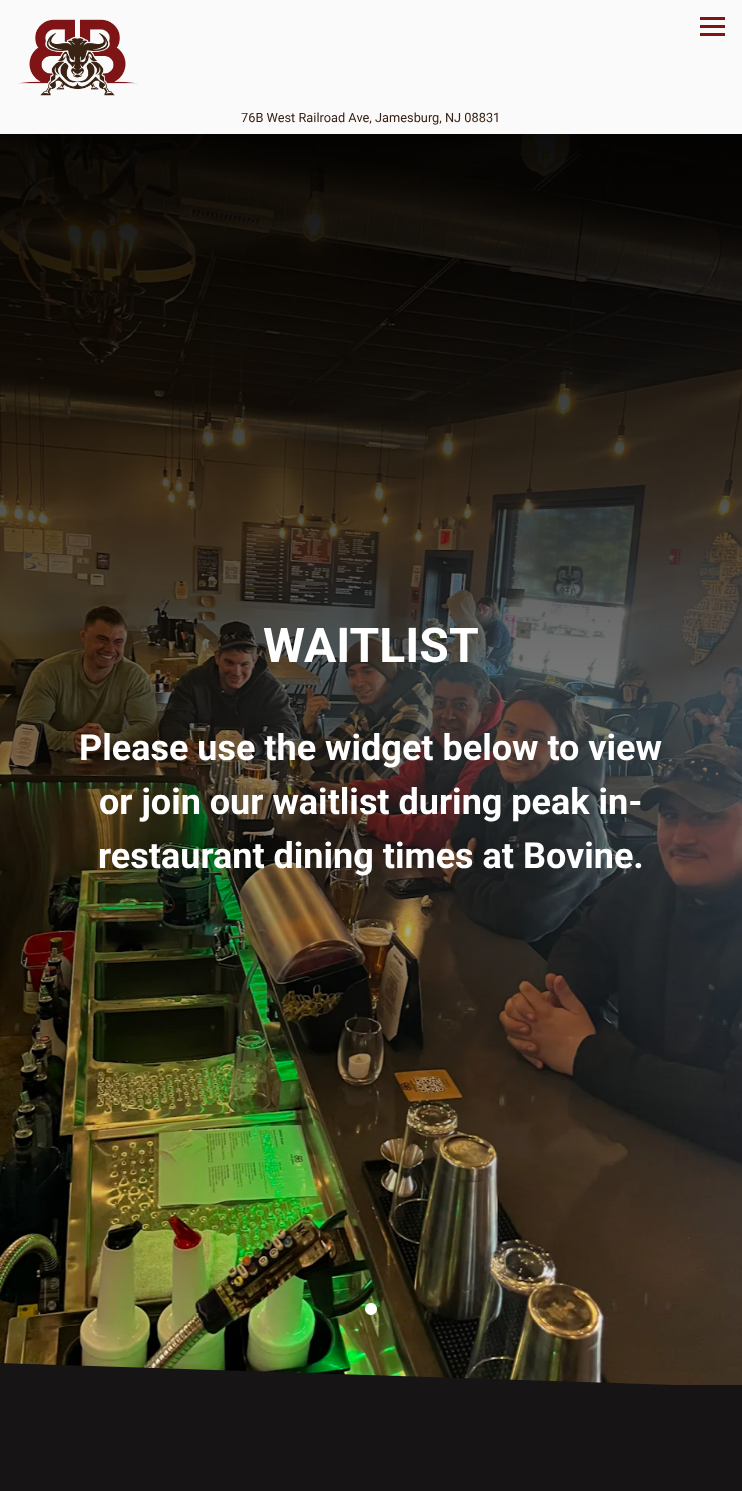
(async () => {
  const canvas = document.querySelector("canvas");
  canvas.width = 742;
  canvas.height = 1491;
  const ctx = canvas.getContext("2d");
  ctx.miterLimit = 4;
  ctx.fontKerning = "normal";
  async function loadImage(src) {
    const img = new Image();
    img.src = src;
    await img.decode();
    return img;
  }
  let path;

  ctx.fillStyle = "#161414";
  ctx.fillRect(0, 0, 742, 1491);
  ctx.fillStyle = "#fafafa";
  ctx.fillRect(0, 0, 742, 134);
  ctx.drawImage(await loadImage("img/1.png"), 17, 19, 121, 77);
  for (const [x, y, w, h, color] of [
    [700, 17, 25, 3, "#7e1415"],
    [700, 25, 25, 3, "#7e1415"],
    [700, 33, 25, 3, "#7e1415"],
  ]) {
    ctx.fillStyle = color;
    ctx.fillRect(x, y, w, h);
  }
  ctx.drawImage(await loadImage("img/2.png"), 0, 134, 742, 1251);
  ctx.drawImage(await loadImage("img/3.png"), 365, 1303, 12, 12);
  ctx.save();
  ctx.beginPath();
  ctx.rect(0, 134, 742, 1251);
  ctx.clip();
  ctx.fillStyle = "#161414";
  path = new Path2D("M0 1363V1387H736Z");
  ctx.fill(path);
  ctx.restore();
  ctx.font = "12.8px Roboto";
  ctx.fillStyle = "#3a2215";
  ctx.fillText("76B West Railroad Ave, Jamesburg, NJ 08831", 241, 122);
  ctx.font = "bold 48px Roboto";
  ctx.fillStyle = "#ffffff";
  ctx.fillText("WAITLIST", 263, 662);
  ctx.font = "bold 36px Roboto";
  for (const [text, x, y] of [
    ["Please use the widget below to view", 79, 760],
    ["or join our waitlist during peak in-", 99, 814],
    ["restaurant dining times at Bovine.", 98, 868],
  ]) {
    ctx.fillText(text, x, y);
  }
})();
